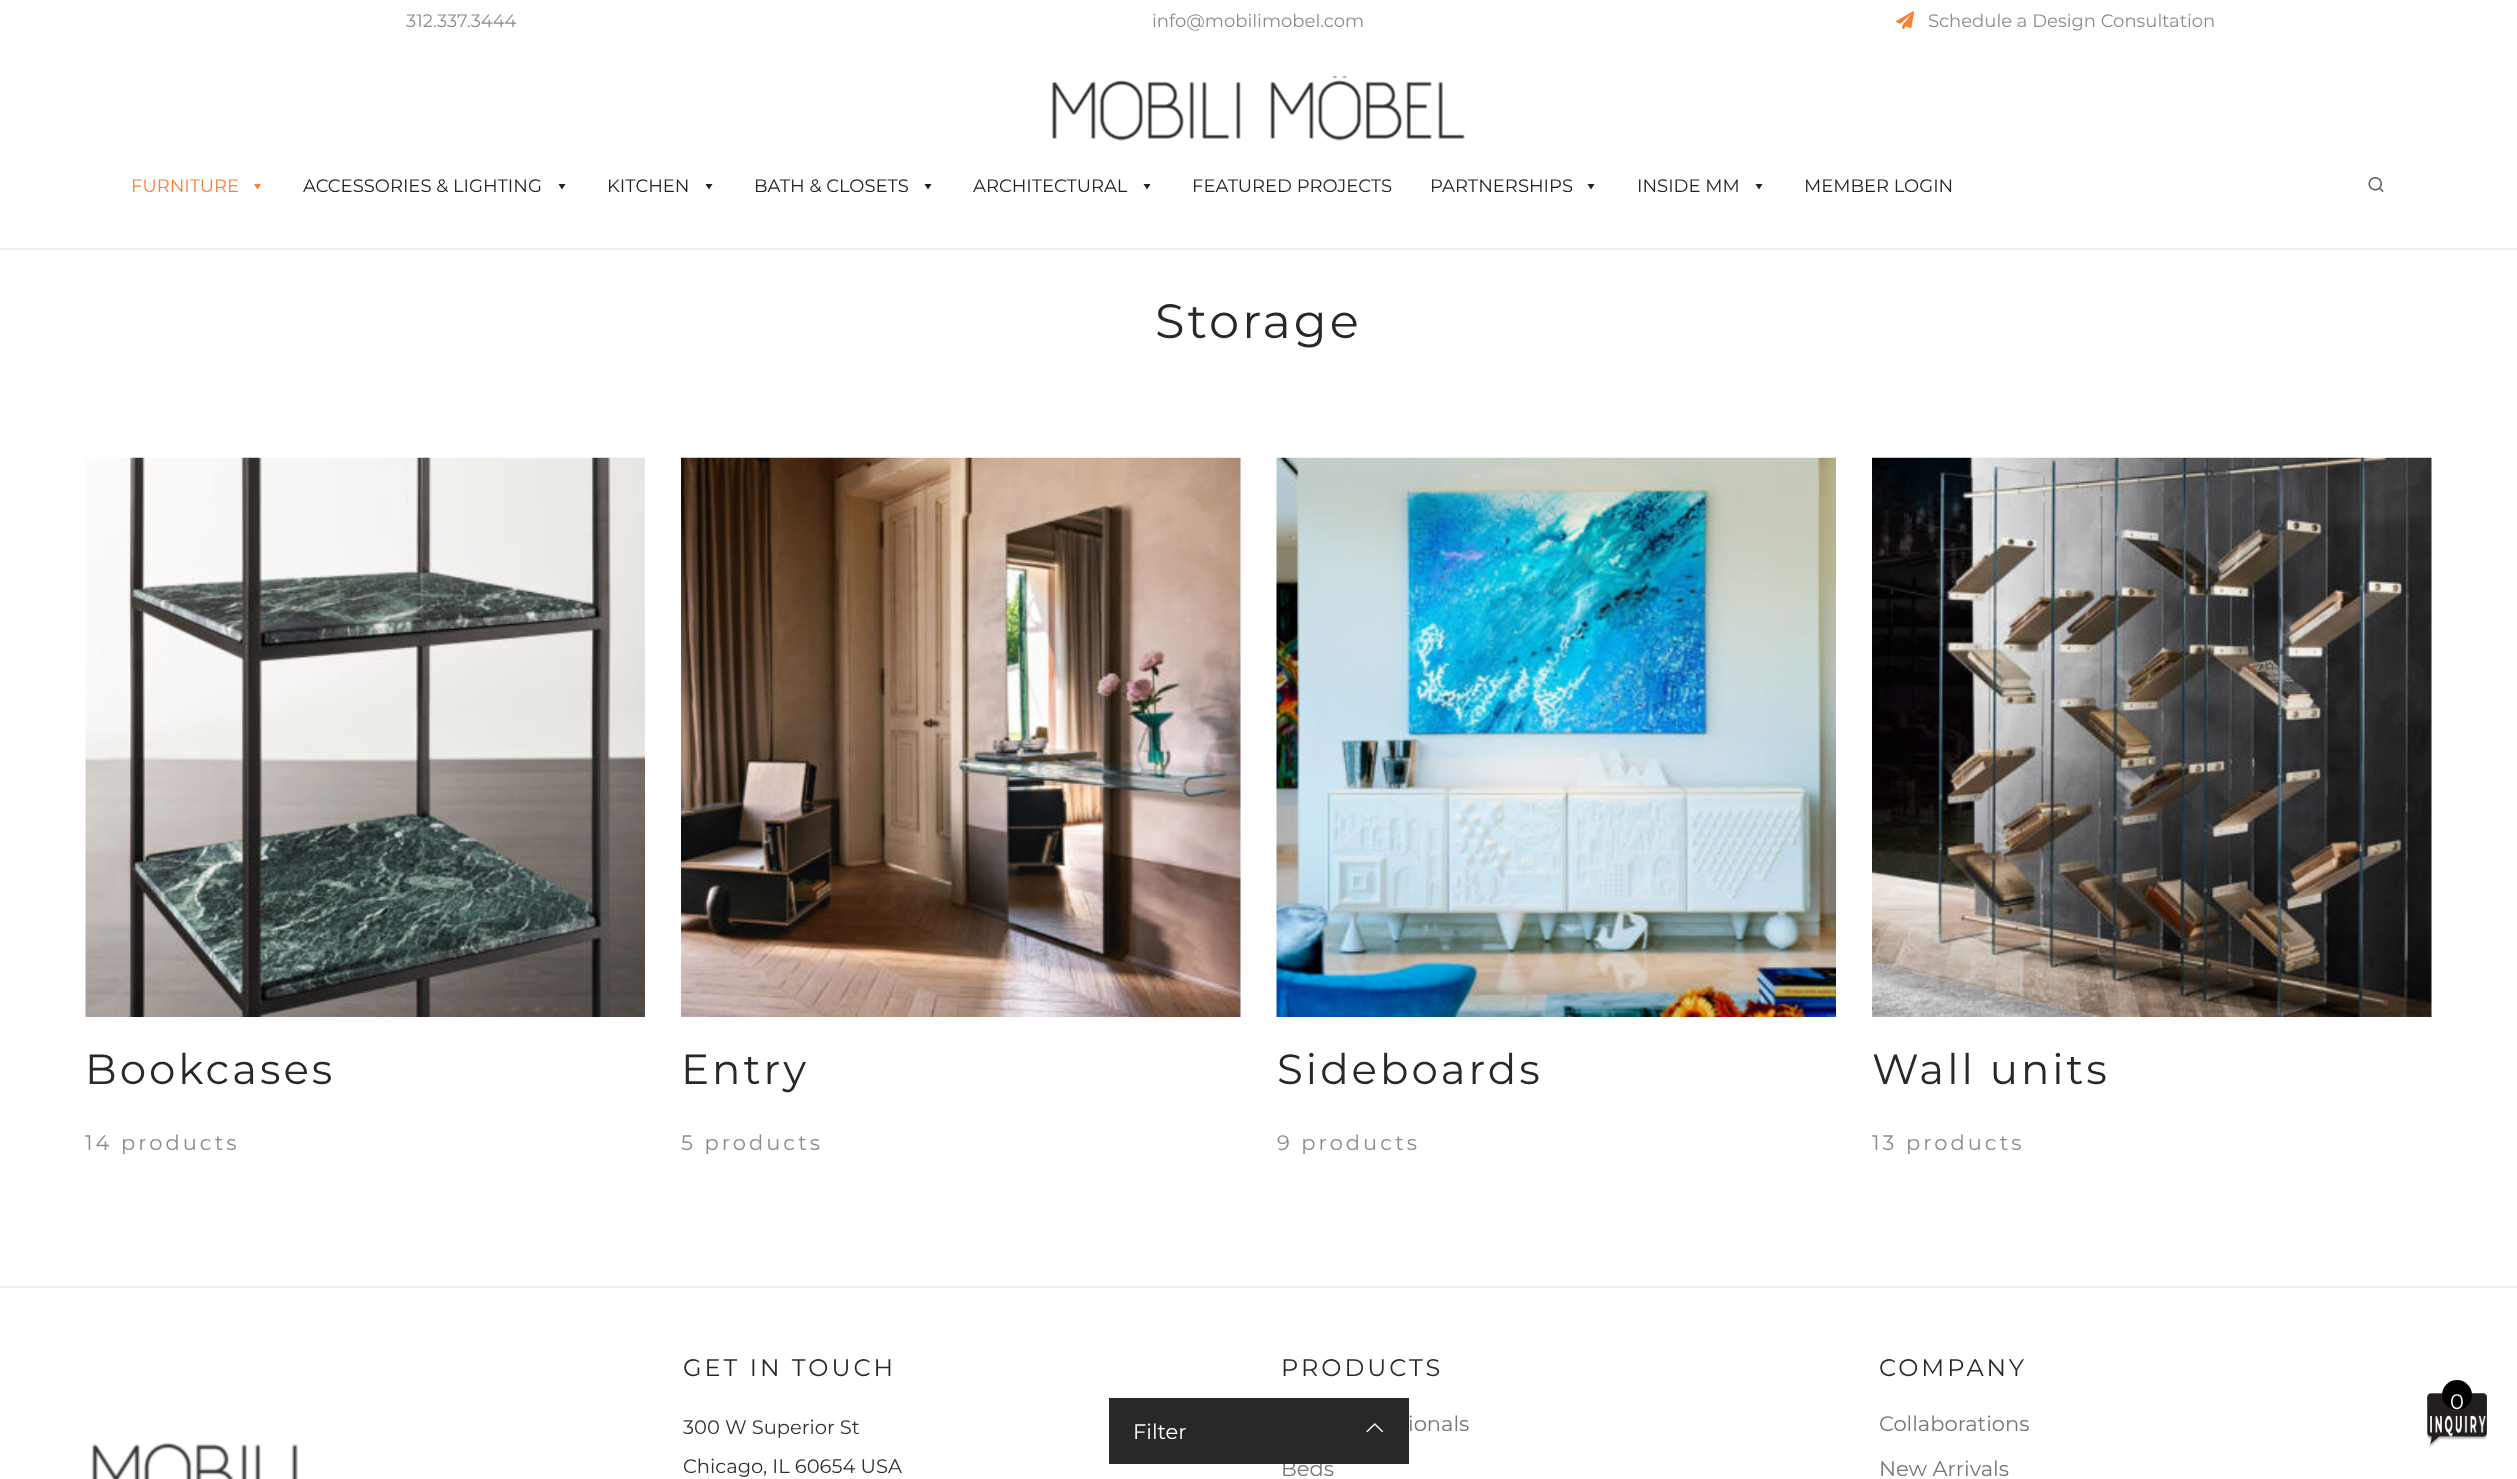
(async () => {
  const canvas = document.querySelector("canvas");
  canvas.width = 2517;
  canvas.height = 1479;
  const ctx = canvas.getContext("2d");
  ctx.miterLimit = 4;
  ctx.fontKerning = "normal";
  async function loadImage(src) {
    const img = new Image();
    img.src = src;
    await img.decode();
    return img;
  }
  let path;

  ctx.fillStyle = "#ffffff";
  ctx.fillRect(0, 0, 2517, 1479);
  ctx.drawImage(await loadImage("img/1.png"), 1896, 11, 18, 19);
  ctx.fillStyle = "#eeeeee";
  ctx.fillRect(0, 248, 2517, 2);
  ctx.drawImage(await loadImage("img/2.png"), 1052, 76, 413, 65);
  ctx.fillStyle = "#ff7f32";
  path = new Path2D("M261 184L257.5 189.5L254 184Z");
  ctx.fill(path);
  ctx.fillStyle = "#222222";
  path = new Path2D("M565.5 184L562 189.5L558.5 184Z");
  ctx.fill(path);
  path = new Path2D("M712.5 184L709 189.5L705.5 184Z");
  ctx.fill(path);
  path = new Path2D("M931.5 184L928 189.5L924.5 184Z");
  ctx.fill(path);
  path = new Path2D("M1150.5 184L1147 189.5L1143.5 184Z");
  ctx.fill(path);
  path = new Path2D("M1594.5 184L1591 189.5L1587.5 184Z");
  ctx.fill(path);
  path = new Path2D("M1762.5 184L1759 189.5L1755.5 184Z");
  ctx.fill(path);
  ctx.drawImage(await loadImage("img/3.png"), 2368, 177, 16, 15);
  ctx.drawImage(await loadImage("img/4.png"), 85, 457, 560, 560);
  ctx.drawImage(await loadImage("img/5.png"), 681, 457, 560, 560);
  ctx.drawImage(await loadImage("img/6.png"), 1276, 457, 560, 560);
  ctx.drawImage(await loadImage("img/7.png"), 1872, 457, 560, 560);
  ctx.fillStyle = "#eeeeee";
  ctx.fillRect(0, 1286, 2517, 2);
  ctx.drawImage(await loadImage("img/9.png"), 91, 1442, 207, 37);
  ctx.drawImage(await loadImage("img/10.png"), 2427, 1393, 60, 54);
  ctx.fillStyle = "#000000";
  ctx.beginPath();
  ctx.arc(2457, 1395, 15, 0, Math.PI * 2);
  ctx.fill();
  ctx.font = "18px Montserrat";
  ctx.fillStyle = "#8c8c8c";
  for (const [text, x, y] of [
    ["312.337.3444", 406, 27],
    ["info@mobilimobel.com", 1152, 27],
    ["Schedule a Design Consultation", 1928, 27],
  ]) {
    ctx.fillText(text, x, y);
  }
  ctx.fillStyle = "#ff7f32";
  ctx.fillText("FURNITURE", 131, 192);
  ctx.fillStyle = "#222222";
  for (const [text, x, y] of [
    ["ACCESSORIES & LIGHTING", 303, 192],
    ["KITCHEN", 607, 192],
    ["BATH & CLOSETS", 754, 192],
    ["ARCHITECTURAL", 973, 192],
    ["FEATURED PROJECTS", 1192, 192],
    ["PARTNERSHIPS", 1430, 192],
    ["INSIDE MM", 1637, 192],
    ["MEMBER LOGIN", 1804, 192],
  ]) {
    ctx.fillText(text, x, y);
  }
  ctx.letterSpacing = "3px";
  ctx.font = "48px Montserrat";
  ctx.fillStyle = "#282828";
  ctx.fillText("Storage", 1155, 338);
  ctx.font = "42px Montserrat";
  ctx.fillText("Bookcases", 85, 1084);
  ctx.font = "21px Montserrat";
  ctx.fillStyle = "#8c8c8c";
  ctx.fillText("14 products", 85, 1150);
  ctx.font = "42px Montserrat";
  ctx.fillStyle = "#282828";
  ctx.fillText("Entry", 681, 1084);
  ctx.font = "21px Montserrat";
  ctx.fillStyle = "#8c8c8c";
  ctx.fillText("5 products", 681, 1150);
  ctx.font = "42px Montserrat";
  ctx.fillStyle = "#282828";
  ctx.fillText("Sideboards", 1277, 1084);
  ctx.font = "21px Montserrat";
  ctx.fillStyle = "#8c8c8c";
  ctx.fillText("9 products", 1277, 1150);
  ctx.font = "42px Montserrat";
  ctx.fillStyle = "#282828";
  ctx.fillText("Wall units", 1872, 1084);
  ctx.font = "21px Montserrat";
  ctx.fillStyle = "#8c8c8c";
  ctx.fillText("13 products", 1872, 1150);
  ctx.font = "24px Montserrat";
  ctx.fillStyle = "#282828";
  ctx.fillText("GET IN TOUCH", 683, 1376);
  ctx.letterSpacing = "0px";
  ctx.font = "19.5px Montserrat";
  ctx.fillStyle = "#313131";
  ctx.fillText("300 W Superior St", 683, 1434);
  ctx.fillText("Chicago, IL 60654 USA", 683, 1473);
  ctx.letterSpacing = "3px";
  ctx.font = "24px Montserrat";
  ctx.fillStyle = "#282828";
  ctx.fillText("PRODUCTS", 1281, 1376);
  ctx.letterSpacing = "0px";
  ctx.font = "21px Montserrat";
  ctx.fillStyle = "#777777";
  ctx.fillText("ionals", 1408, 1431);
  ctx.fillText("Beds", 1281, 1476);
  ctx.fillStyle = "#282828";
  ctx.fillRect(1109, 1398, 300, 66);
  ctx.fillStyle = "#ffffff";
  ctx.fillText("Filter", 1133, 1439);
  ctx.drawImage(await loadImage("img/8.png"), 1366, 1423, 18, 10);
  ctx.letterSpacing = "3px";
  ctx.font = "24px Montserrat";
  ctx.fillStyle = "#282828";
  ctx.fillText("COMPANY", 1879, 1376);
  ctx.letterSpacing = "0px";
  ctx.font = "21px Montserrat";
  ctx.fillStyle = "#777777";
  ctx.fillText("Collaborations", 1879, 1431);
  ctx.fillText("New Arrivals", 1879, 1476);
  ctx.fillStyle = "#ffffff";
  ctx.fillText("0", 2450, 1409);
})();
